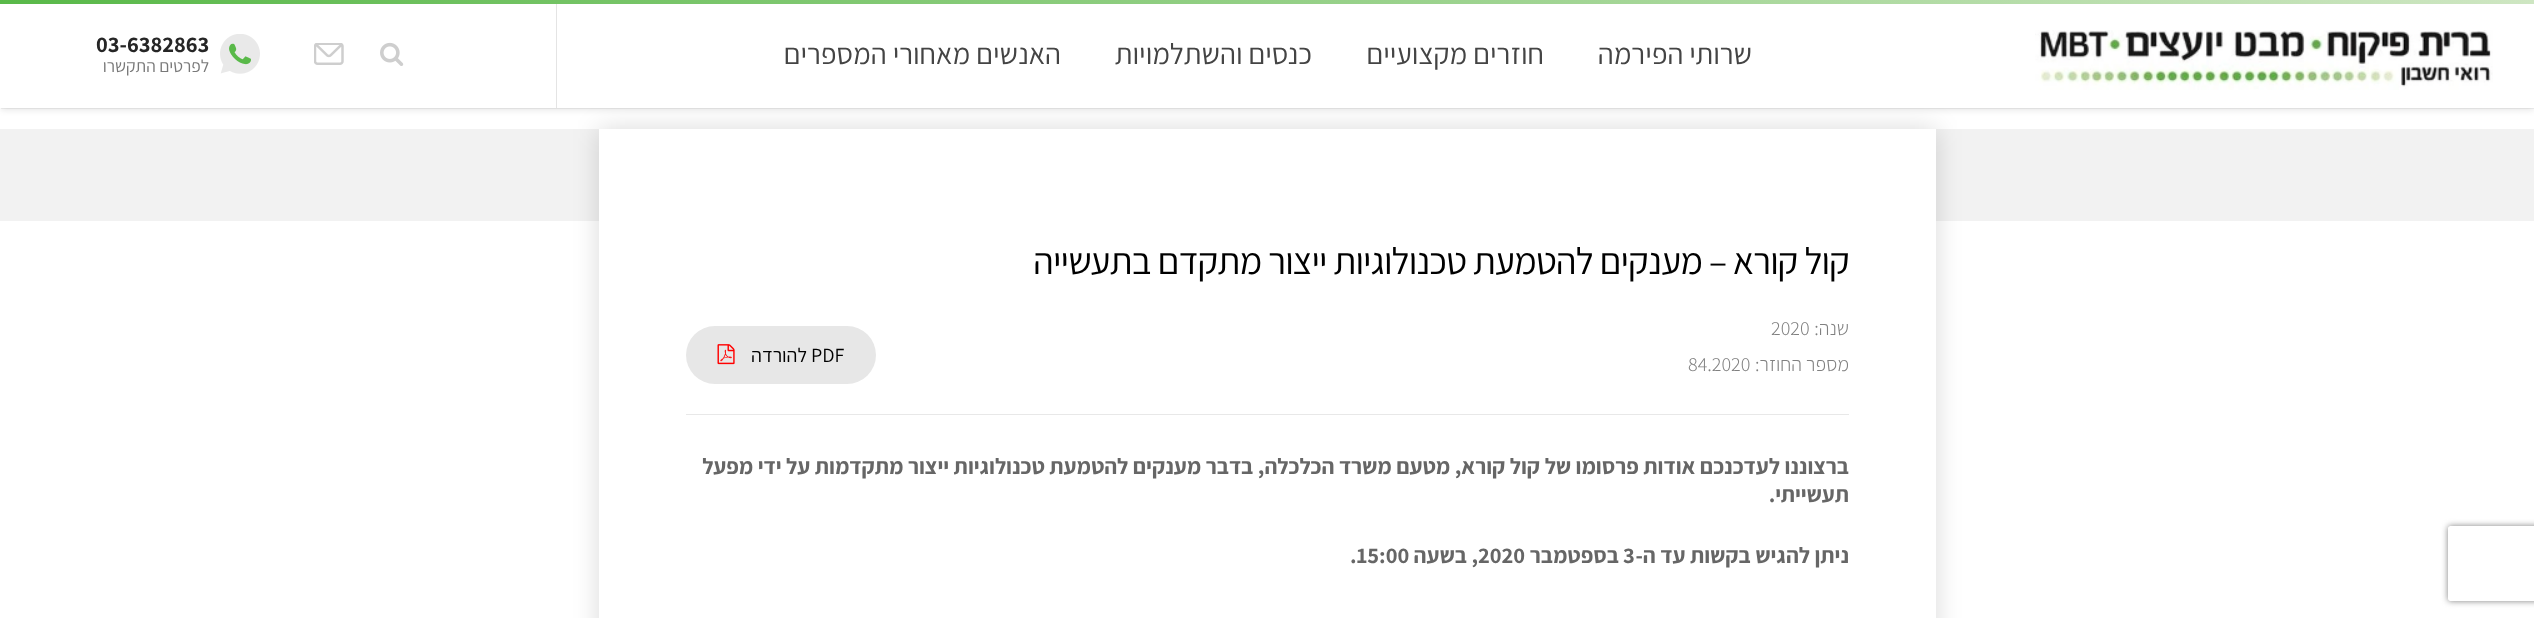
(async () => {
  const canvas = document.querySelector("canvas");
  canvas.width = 2534;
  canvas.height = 618;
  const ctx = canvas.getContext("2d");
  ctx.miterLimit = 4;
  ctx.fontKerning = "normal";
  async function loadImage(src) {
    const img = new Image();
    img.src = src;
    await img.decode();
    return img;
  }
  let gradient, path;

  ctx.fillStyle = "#ffffff";
  ctx.fillRect(0, 0, 2534, 618);
  ctx.save();
  path = new Path2D("M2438 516H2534V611H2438ZM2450.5 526H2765.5C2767 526 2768 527 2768 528.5V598.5C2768 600 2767 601 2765.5 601H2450.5C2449 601 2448 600 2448 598.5V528.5C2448 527 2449 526 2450.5 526Z");
  ctx.clip(path, "evenodd");
  ctx.fillStyle = "#808080";
  ctx.filter = "blur(3px)";
  ctx.beginPath();
  ctx.roundRect(2448, 526, 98, 75, 2.5);
  ctx.fill();
  ctx.filter = "none";
  ctx.restore();
  ctx.fillStyle = "rgba(0, 0, 0, 0.05)";
  ctx.filter = "blur(0.5px)";
  ctx.beginPath();
  ctx.rect(1, 4, 2533, 105);
  ctx.fill();
  ctx.filter = "none";
  ctx.fillStyle = "rgba(0, 0, 0, 0.1)";
  ctx.filter = "blur(3px)";
  ctx.beginPath();
  ctx.rect(1, 5, 2533, 105);
  ctx.fill();
  ctx.filter = "none";
  ctx.fillStyle = "#f2f2f2";
  ctx.fillRect(0, 129, 2534, 92);
  ctx.fillStyle = "rgba(0, 0, 0, 0.15)";
  ctx.filter = "blur(13px)";
  ctx.beginPath();
  ctx.rect(599, 129, 1337, 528);
  ctx.fill();
  ctx.filter = "none";
  ctx.fillStyle = "#ffffff";
  ctx.fillRect(0, 4, 2534, 104);
  ctx.fillStyle = "#e4e4e4";
  ctx.fillRect(556, 0, 1, 108);
  gradient = ctx.createLinearGradient(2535, 1.9, 0, 1.9);
  gradient.addColorStop(0, "#cee6c2");
  gradient.addColorStop(1, "#59b949");
  ctx.fillStyle = gradient;
  ctx.fillRect(0, 0, 2534, 4);
  ctx.drawImage(await loadImage("img/1.png"), 2035, 30, 458, 60);
  ctx.drawImage(await loadImage("img/2.png"), 380, 42, 24, 24);
  ctx.drawImage(await loadImage("img/3.png"), 314, 43, 30, 22);
  ctx.drawImage(await loadImage("img/4.png"), 220, 34, 40, 40);
  ctx.fillStyle = "#ffffff";
  ctx.fillRect(599, 129, 1337, 489);
  ctx.fillStyle = "#e7e7e7";
  ctx.beginPath();
  ctx.roundRect(686, 326, 190, 58, 29);
  ctx.fill();
  ctx.drawImage(await loadImage("img/5.png"), 717, 344, 18, 21);
  ctx.fillStyle = "#e8e8e8";
  ctx.fillRect(686, 414, 1163, 1);
  ctx.direction = "rtl";
  ctx.font = "200 29.25px 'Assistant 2'";
  ctx.fillStyle = "#444444";
  for (const [text, x, y] of [
    ["שרותי הפירמה", 1752, 64],
    ["חוזרים מקצועיים", 1544, 64],
    ["כנסים והשתלמויות", 1312, 64],
    ["האנשים מאחורי המספרים", 1061, 64],
  ]) {
    ctx.fillText(text, x, y);
  }
  ctx.direction = "ltr";
  ctx.font = "200 22.5px Assistant";
  ctx.fillStyle = "#262626";
  ctx.fillText("03-6382863", 96, 52);
  ctx.direction = "rtl";
  ctx.font = "200 17.5px 'Assistant 2'";
  ctx.fillStyle = "#797979";
  ctx.fillText("לפרטים התקשרו", 209, 72);
  ctx.letterSpacing = "-0.75px";
  ctx.font = "200 37.5px 'Assistant 2'";
  ctx.fillStyle = "#000000";
  ctx.fillText("קול קורא – מענקים להטמעת טכנולוגיות ייצור מתקדם בתעשייה", 1849, 274);
  ctx.letterSpacing = "0px";
  ctx.font = "200 20px 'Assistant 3'";
  ctx.fillStyle = "#808080";
  ctx.fillText("שנה:", 1849, 335);
  ctx.direction = "ltr";
  ctx.fillText("2020", 1771, 335);
  ctx.font = "200 20px 'Assistant 2'";
  ctx.fillStyle = "#000000";
  ctx.fillText("PDF", 811, 362);
  ctx.direction = "rtl";
  ctx.fillText("להורדה", 807, 362);
  ctx.font = "200 20px 'Assistant 3'";
  ctx.fillStyle = "#808080";
  ctx.fillText("מספר החוזר:", 1849, 371);
  ctx.direction = "ltr";
  ctx.fillText("84.2020", 1688, 371);
  ctx.direction = "rtl";
  ctx.font = "200 22.5px Assistant";
  ctx.fillStyle = "#666666";
  for (const [text, x, y] of [
    ["ברצוננו לעדכנכם אודות פרסומו של קול קורא, מטעם משרד הכלכלה, בדבר מענקים להטמעת טכנולוגיות ייצור מתקדמות על ידי מפעל", 1849, 474],
    ["תעשייתי.", 1849, 502],
    ["ניתן להגיש בקשות עד ה-", 1849, 563],
  ]) {
    ctx.fillText(text, x, y);
  }
  ctx.direction = "ltr";
  ctx.fillText("3", 1623, 563);
  ctx.direction = "rtl";
  ctx.fillText("בספטמבר", 1619, 563);
  ctx.direction = "ltr";
  ctx.fillText("2020", 1478, 563);
  ctx.direction = "rtl";
  ctx.fillText(", בשעה", 1478, 563);
  ctx.direction = "ltr";
  ctx.fillText(".15:00", 1350, 563);
})();
